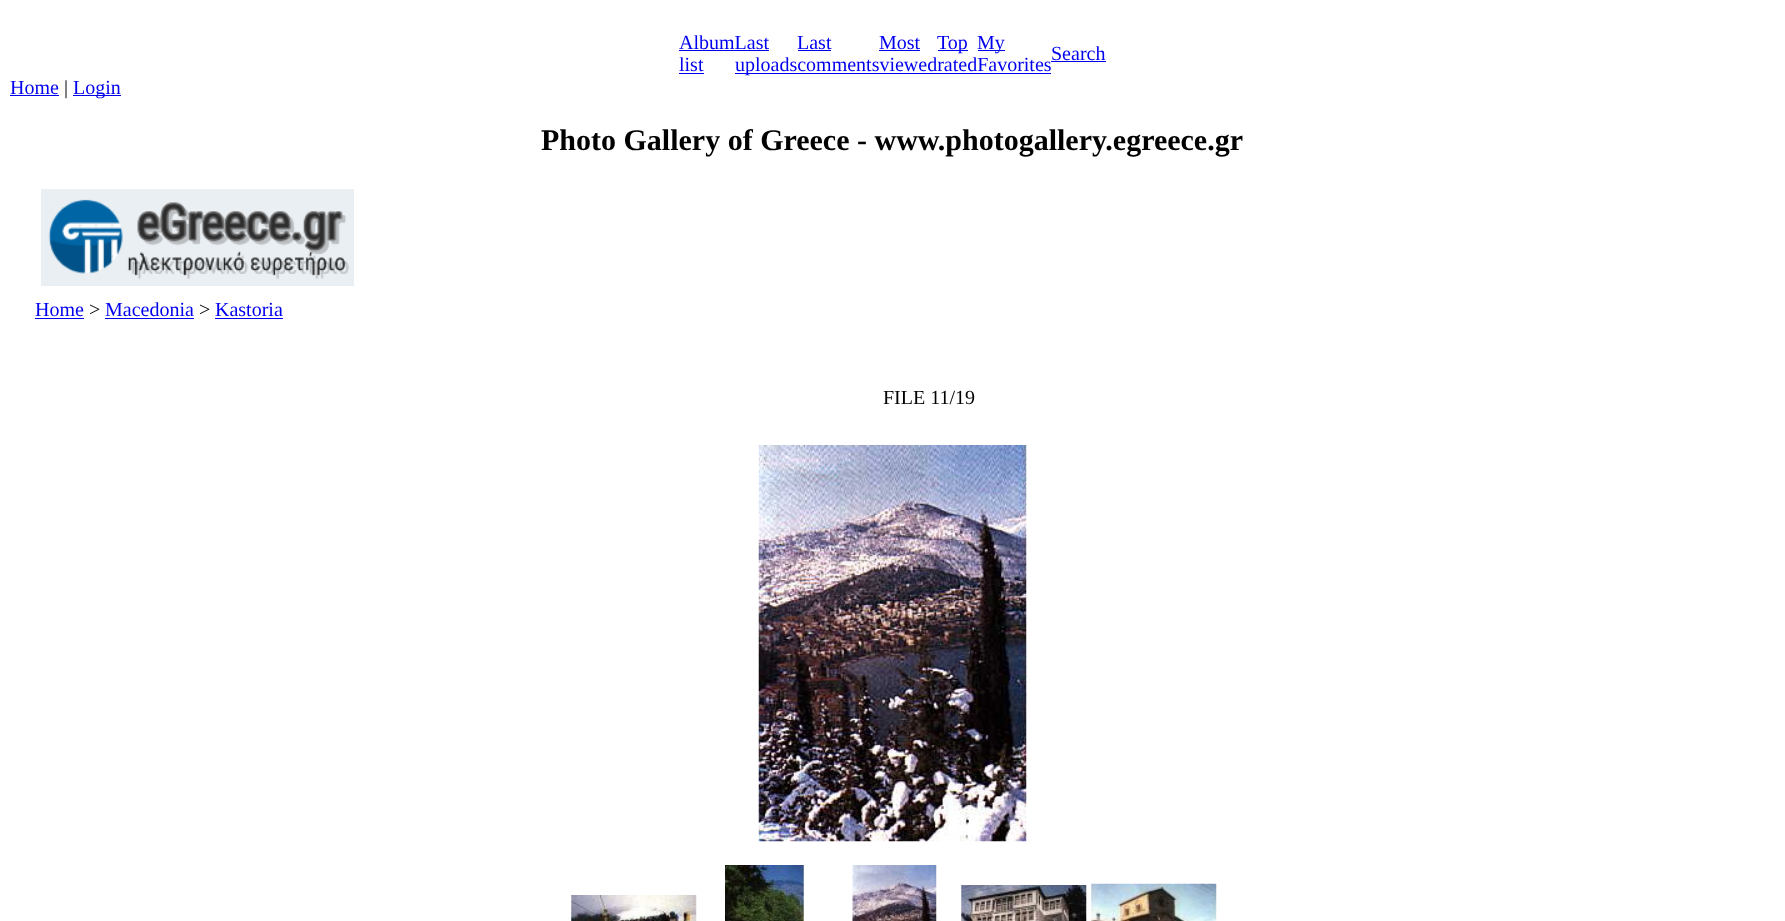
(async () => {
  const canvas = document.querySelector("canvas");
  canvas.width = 1785;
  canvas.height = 921;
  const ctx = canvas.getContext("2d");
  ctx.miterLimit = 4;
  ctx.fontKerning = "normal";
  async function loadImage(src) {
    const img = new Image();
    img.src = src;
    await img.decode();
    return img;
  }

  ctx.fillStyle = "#ffffff";
  ctx.fillRect(0, 0, 1785, 921);
  for (const [x, y, w, h, color] of [
    [679, 50, 90, 1, "#0000ee"],
    [679, 73, 25, 1, "#0000ee"],
    [798, 50, 33, 1, "#0000ee"],
    [879, 50, 41, 1, "#0000ee"],
    [938, 50, 30, 1, "#0000ee"],
    [978, 50, 27, 1, "#0000ee"],
    [1051, 61, 55, 1, "#0000ee"],
    [735, 73, 316, 1, "#0000ee"],
    [10, 95, 49, 1, "#0000ee"],
    [73, 95, 48, 1, "#0000ee"],
    [41, 189, 313, 97, "#eaeff3"],
  ]) {
    ctx.fillStyle = color;
    ctx.fillRect(x, y, w, h);
  }
  ctx.drawImage(await loadImage("img/1.png"), 48, 199, 301, 80);
  for (const [x, y, w, h, color] of [
    [35, 318, 49, 1, "#0000ee"],
    [105, 318, 89, 1, "#0000ee"],
    [215, 318, 68, 1, "#0000ee"],
  ]) {
    ctx.fillStyle = color;
    ctx.fillRect(x, y, w, h);
  }
  ctx.drawImage(await loadImage("img/2.png"), 758, 445, 269, 397);
  ctx.drawImage(await loadImage("img/3.png"), 571, 895, 126, 26);
  ctx.drawImage(await loadImage("img/4.png"), 725, 865, 79, 56);
  ctx.drawImage(await loadImage("img/5.png"), 852, 865, 85, 56);
  ctx.drawImage(await loadImage("img/6.png"), 961, 885, 126, 36);
  ctx.drawImage(await loadImage("img/7.png"), 1091, 883, 126, 38);
  ctx.font = "20px Liberation Serif";
  for (const [text, x, y] of [
    ["AlbumLast", 679, 49],
    ["list", 679, 71],
    ["Last", 797, 49],
    ["Most", 879, 49],
    ["Top", 937, 49],
    ["My", 977, 49],
    ["Search", 1051, 60],
    ["uploadscommentsviewedratedFavorites", 735, 71],
    ["Home", 10, 94],
  ]) {
    ctx.fillText(text, x, y);
  }
  ctx.fillStyle = "#000000";
  ctx.fillText("|", 64, 94);
  ctx.fillStyle = "#0000ee";
  ctx.fillText("Login", 73, 94);
  ctx.font = "bold 30px Liberation Serif";
  ctx.fillStyle = "#000000";
  ctx.fillText("Photo Gallery of Greece - www.photogallery.egreece.gr", 541, 150);
  ctx.font = "20px Liberation Serif";
  ctx.fillStyle = "#0000ee";
  ctx.fillText("Home", 35, 316);
  ctx.fillStyle = "#000000";
  ctx.fillText(">", 89, 316);
  ctx.fillStyle = "#0000ee";
  ctx.fillText("Macedonia", 105, 316);
  ctx.fillStyle = "#000000";
  ctx.fillText(">", 199, 316);
  ctx.fillStyle = "#0000ee";
  ctx.fillText("Kastoria", 215, 316);
  ctx.fillStyle = "#000000";
  ctx.fillText("FILE 11/19", 883, 404);
})();
